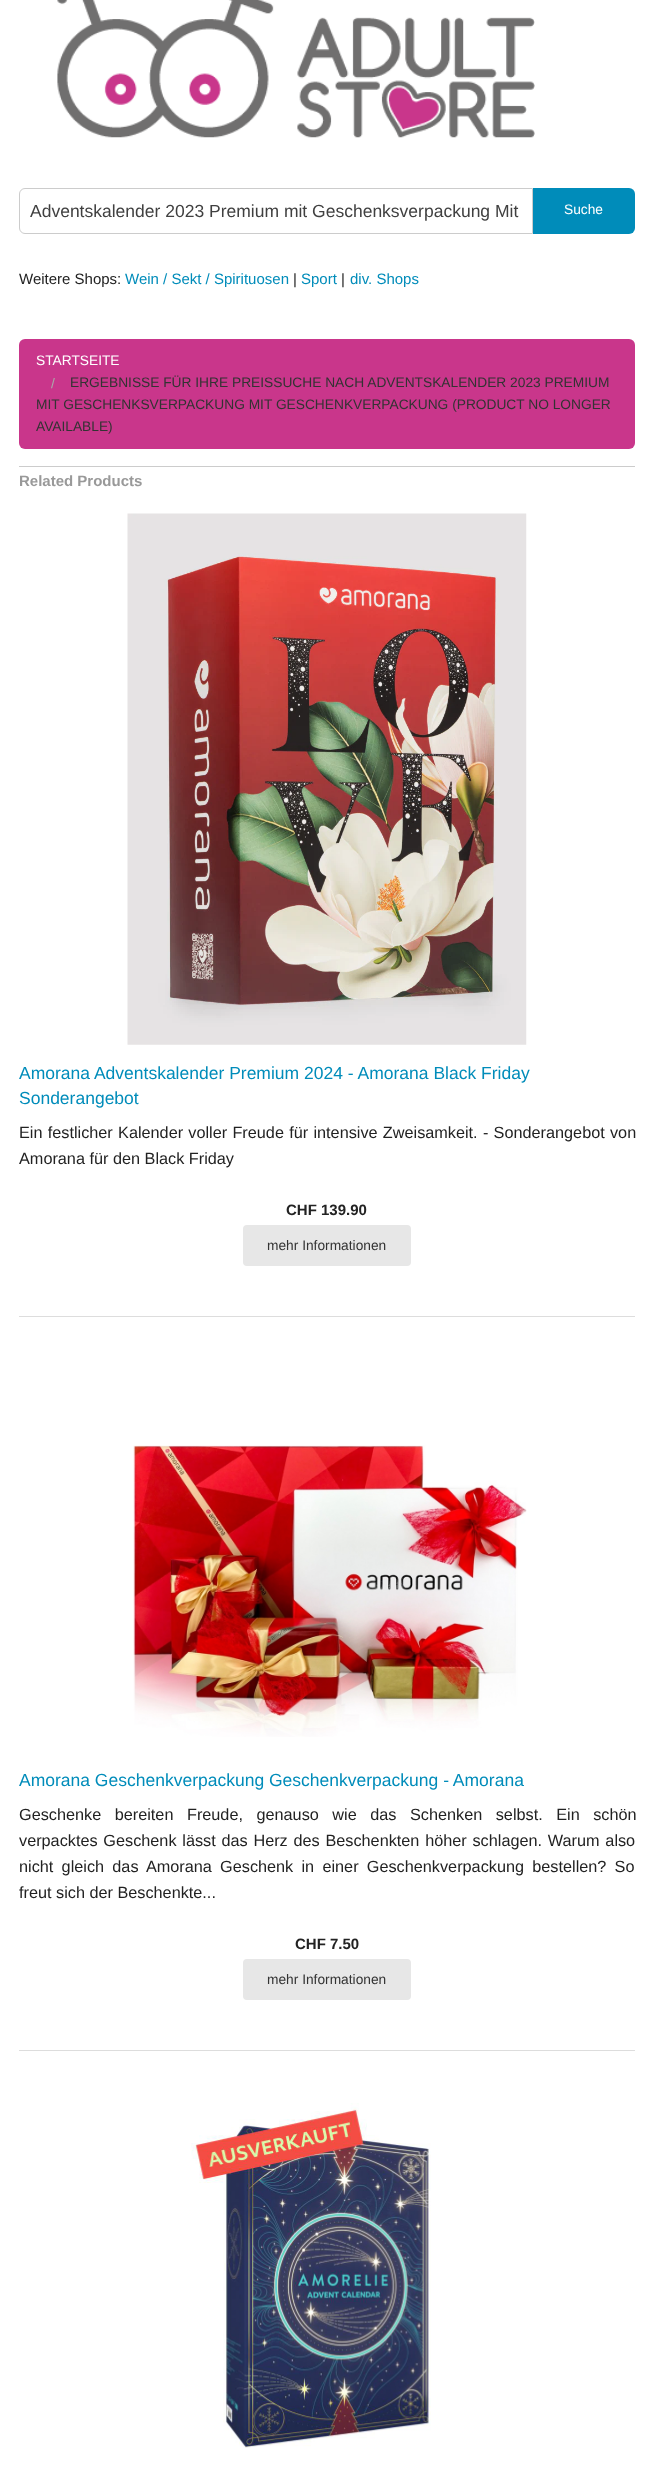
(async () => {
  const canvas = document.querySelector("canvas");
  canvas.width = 653;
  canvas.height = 2474;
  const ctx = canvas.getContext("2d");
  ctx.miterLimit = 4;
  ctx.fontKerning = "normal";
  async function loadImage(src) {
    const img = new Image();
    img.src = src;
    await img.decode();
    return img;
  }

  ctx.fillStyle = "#ffffff";
  ctx.fillRect(0, 0, 653, 2474);
  ctx.drawImage(await loadImage("img/1.png"), 57, 0, 478, 138);
  ctx.beginPath();
  ctx.roundRect(19.5, 188.5, 513, 45, [5.5, 0, 0, 5.5]);
  ctx.strokeStyle = "#cccccc";
  ctx.stroke();
  ctx.fillStyle = "#008cba";
  ctx.beginPath();
  ctx.roundRect(533, 188, 102, 46, [0, 6, 6, 0]);
  ctx.fill();
  ctx.fillStyle = "#c9368b";
  ctx.beginPath();
  ctx.roundRect(19, 339, 616, 110, 6);
  ctx.fill();
  ctx.fillStyle = "#cccccc";
  ctx.fillRect(19, 466, 616, 1);
  ctx.drawImage(await loadImage("img/2.png"), 127, 513, 400, 532);
  ctx.fillStyle = "#e7e7e7";
  ctx.beginPath();
  ctx.roundRect(243, 1225, 168, 41, 4);
  ctx.fill();
  ctx.fillStyle = "#dddddd";
  ctx.fillRect(19, 1316, 616, 1);
  ctx.drawImage(await loadImage("img/3.png"), 133, 1445, 394, 292);
  ctx.fillStyle = "#e7e7e7";
  ctx.beginPath();
  ctx.roundRect(243, 1959, 168, 41, 4);
  ctx.fill();
  ctx.fillStyle = "#dddddd";
  ctx.fillRect(19, 2050, 616, 1);
  ctx.drawImage(await loadImage("img/4.png"), 191, 2103, 240, 345);
  ctx.font = "17.5px Liberation Sans";
  ctx.fillStyle = "#404040";
  ctx.fillText("Adventskalender 2023 Premium mit Geschenksverpackung Mit", 30, 217);
  ctx.font = "13.75px Liberation Sans";
  ctx.fillStyle = "#ffffff";
  ctx.fillText("Suche", 564, 214);
  ctx.font = "15px Liberation Sans";
  ctx.fillStyle = "#222222";
  ctx.fillText("Weitere Shops:", 19, 284);
  ctx.fillStyle = "#008cba";
  ctx.fillText("Wein / Sekt / Spirituosen", 125, 284);
  ctx.fillStyle = "#222222";
  ctx.fillText("|", 293, 284);
  ctx.fillStyle = "#008cba";
  ctx.fillText("Sport", 301, 284);
  ctx.fillStyle = "#222222";
  ctx.fillText("|", 341, 284);
  ctx.fillStyle = "#008cba";
  ctx.fillText("div. Shops", 350, 284);
  ctx.font = "13.75px Liberation Sans";
  ctx.fillStyle = "#ffffff";
  ctx.fillText("STARTSEITE", 36, 365);
  ctx.fillStyle = "#aaaaaa";
  ctx.fillText("/", 51, 388);
  ctx.fillStyle = "#333333";
  for (const [text, x, y] of [
    ["ERGEBNISSE FÜR IHRE PREISSUCHE NACH ADVENTSKALENDER 2023 PREMIUM", 70, 387],
    ["MIT GESCHENKSVERPACKUNG MIT GESCHENKVERPACKUNG (PRODUCT NO LONGER", 36, 409],
    ["AVAILABLE)", 36, 431],
  ]) {
    ctx.fillText(text, x, y);
  }
  ctx.font = "bold 15px Liberation Sans";
  ctx.fillStyle = "#999999";
  ctx.fillText("Related Products", 19, 486);
  ctx.font = "17.5px Liberation Sans";
  ctx.fillStyle = "#008cba";
  ctx.fillText("Amorana Adventskalender Premium 2024 - Amorana Black Friday", 19, 1079);
  ctx.fillText("Sonderangebot", 19, 1104);
  ctx.wordSpacing = "0.75px";
  ctx.font = "16.25px Liberation Sans";
  ctx.fillStyle = "#222222";
  ctx.fillText("Ein festlicher Kalender voller Freude für intensive Zweisamkeit. - Sonderangebot von", 19, 1138);
  ctx.wordSpacing = "0px";
  ctx.fillText("Amorana für den Black Friday", 19, 1164);
  ctx.font = "bold 15px Liberation Sans";
  ctx.fillText("CHF 139.90", 286, 1215);
  ctx.font = "13.75px Liberation Sans";
  ctx.fillStyle = "#333333";
  ctx.fillText("mehr Informationen", 267, 1250);
  ctx.font = "17.5px Liberation Sans";
  ctx.fillStyle = "#008cba";
  ctx.fillText("Amorana Geschenkverpackung Geschenkverpackung - Amorana", 19, 1786);
  ctx.wordSpacing = "9px";
  ctx.font = "16.25px Liberation Sans";
  ctx.fillStyle = "#222222";
  ctx.fillText("Geschenke bereiten Freude, genauso wie das Schenken selbst. Ein schön", 19, 1820);
  ctx.wordSpacing = "1.25px";
  ctx.fillText("verpacktes Geschenk lässt das Herz des Beschenkten höher schlagen. Warum also", 19, 1846);
  ctx.wordSpacing = "3.75px";
  ctx.fillText("nicht gleich das Amorana Geschenk in einer Geschenkverpackung bestellen? So", 19, 1872);
  ctx.wordSpacing = "0px";
  ctx.fillText("freut sich der Beschenkte...", 19, 1898);
  ctx.font = "bold 15px Liberation Sans";
  ctx.fillText("CHF 7.50", 295, 1949);
  ctx.font = "13.75px Liberation Sans";
  ctx.fillStyle = "#333333";
  ctx.fillText("mehr Informationen", 267, 1984);
})();
